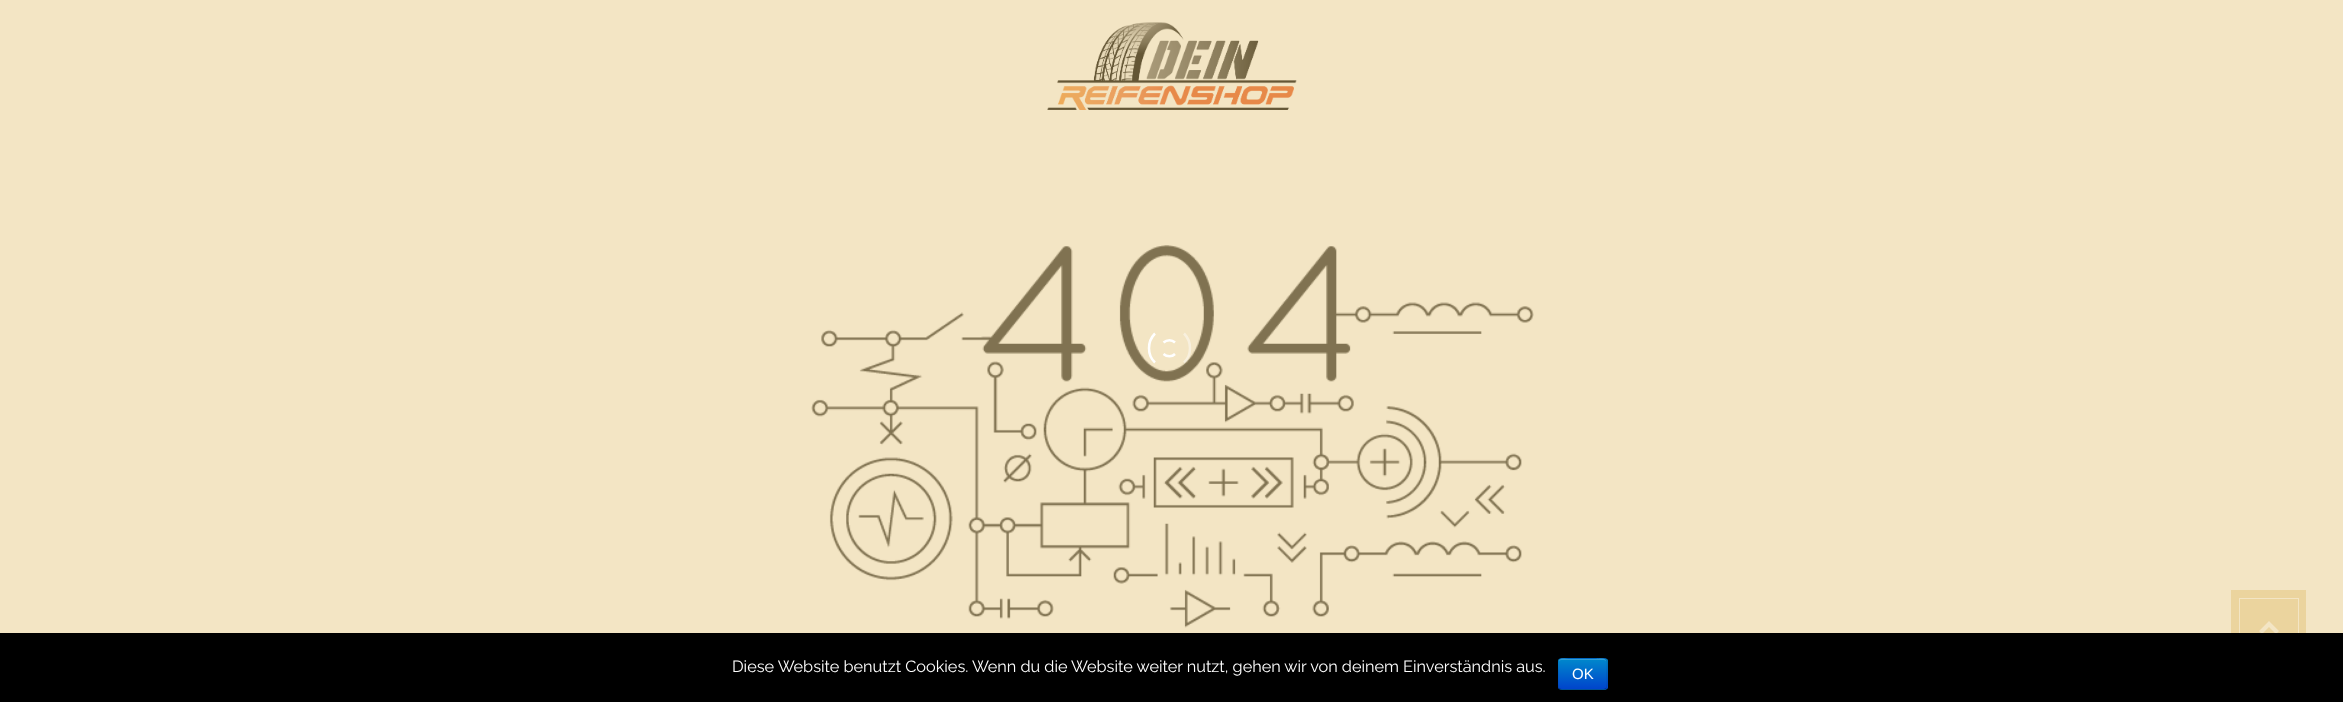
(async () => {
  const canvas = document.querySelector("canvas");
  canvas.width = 2343;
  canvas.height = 702;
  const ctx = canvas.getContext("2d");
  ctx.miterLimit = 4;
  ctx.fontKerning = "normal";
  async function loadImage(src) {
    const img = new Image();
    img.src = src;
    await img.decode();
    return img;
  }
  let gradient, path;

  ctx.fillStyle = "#f3e5c4";
  ctx.fillRect(0, 0, 2343, 702);
  ctx.drawImage(await loadImage("img/1.png"), 1047, 22, 250, 88);
  ctx.drawImage(await loadImage("img/2.png"), 811, 245, 723, 383);
  ctx.fillStyle = "#ebd49e";
  ctx.fillRect(2231, 590, 75, 43);
  ctx.fillStyle = "#f3e5c4";
  path = new Path2D("M2269 621L2279 631L2276 634L2269 627L2262 634L2259 631Z");
  ctx.fill(path);
  ctx.strokeStyle = "#f3e5c4";
  ctx.strokeRect(2239.5, 598.5, 59, 59);
  path = new Path2D("M1184 333.5C1192 341.5 1192 355 1184 362.5");
  ctx.strokeStyle = "rgba(255, 255, 255, 0.44)";
  ctx.lineWidth = 2.5;
  ctx.stroke(path);
  path = new Path2D("M1155 362.5C1147 355 1147 341.5 1155 333.5M1163.5 342.5C1167 339.5 1172 339.5 1175 342.5M1175 354C1172 357 1167 357 1163.5 354");
  ctx.strokeStyle = "#ffffff";
  ctx.stroke(path);
  ctx.fillStyle = "#000000";
  ctx.fillRect(0, 633, 2343, 69);
  ctx.fillStyle = "#006dcc";
  ctx.beginPath();
  ctx.roundRect(1558, 658, 50, 32, 4);
  ctx.fill();
  ctx.save();
  ctx.beginPath();
  ctx.roundRect(1558, 658, 50, 32, 4);
  ctx.clip();
  gradient = ctx.createLinearGradient(1583, 659, 1583, 689);
  gradient.addColorStop(0, "#0088cc");
  gradient.addColorStop(1, "#0044cc");
  ctx.fillStyle = gradient;
  ctx.fillRect(1558, 659, 50, 30);
  ctx.restore();
  ctx.fillStyle = "#339fd6";
  path = new Path2D("M1561 660H1604C1605 660 1606 661 1606 662C1606 657 1599 659 1596 659H1568C1566 659 1559 657 1559 662C1559 661 1560 660 1561 660Z");
  ctx.fill(path);
  path = new Path2D("M1606 688.5L1604 689.5H1561L1559 688.5");
  ctx.strokeStyle = "rgba(0, 0, 0, 0.25)";
  ctx.lineWidth = 1.2;
  ctx.stroke(path);
  path = new Path2D("M1559 688.5C1557 686.5 1558 676.5 1558 674C1558 658.5 1554.5 658 1568.5 658H1596.5C1610.5 658 1607 658.5 1607 674C1607 676.5 1608 686.5 1606 688.5");
  ctx.strokeStyle = "rgba(0, 0, 0, 0.1)";
  ctx.stroke(path);
  ctx.font = "100 16.25px Raleway";
  ctx.fillStyle = "#ffffff";
  ctx.fillText("Diese Website benutzt Cookies. Wenn du die Website weiter nutzt, gehen wir von deinem Einverständnis aus.", 732, 672);
  ctx.font = "15px Liberation Sans";
  ctx.fillText("OK", 1572, 679);
})();
